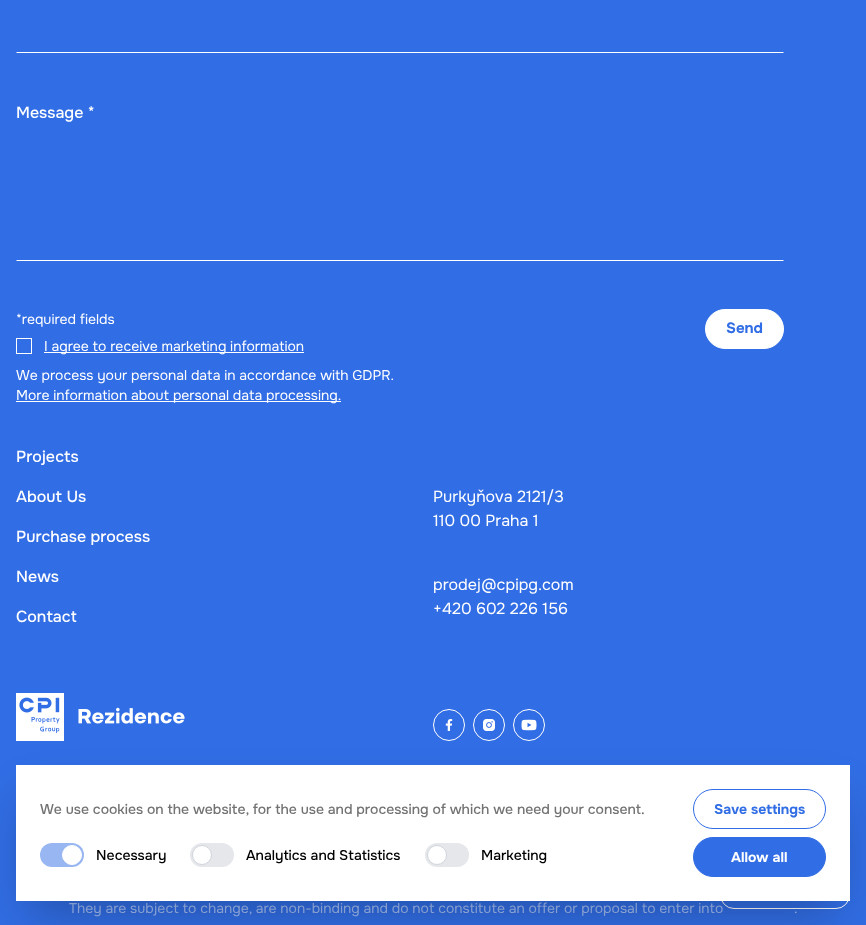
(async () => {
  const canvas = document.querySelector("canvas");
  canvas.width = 866;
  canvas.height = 925;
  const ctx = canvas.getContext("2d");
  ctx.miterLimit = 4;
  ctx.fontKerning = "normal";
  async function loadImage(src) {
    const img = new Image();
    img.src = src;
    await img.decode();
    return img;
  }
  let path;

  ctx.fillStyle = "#316de4";
  ctx.fillRect(0, 0, 866, 925);
  ctx.fillStyle = "#ffffff";
  path = new Path2D("M784 53H16L17 52H783Z");
  ctx.fill(path);
  path = new Path2D("M784 261H16L17 260H783Z");
  ctx.fill(path);
  ctx.strokeStyle = "#ffffff";
  ctx.strokeRect(16.5, 338.5, 15, 15);
  ctx.fillRect(44, 352, 260, 1);
  ctx.fillRect(16, 401, 325, 1);
  ctx.beginPath();
  ctx.roundRect(705.5, 309.5, 78, 39, 19.5);
  ctx.fill();
  ctx.stroke();
  ctx.drawImage(await loadImage("img/1.png"), 16, 693, 169, 48);
  ctx.beginPath();
  ctx.arc(449, 725, 15.5, 0, Math.PI * 2);
  ctx.stroke();
  ctx.drawImage(await loadImage("img/2.png"), 445, 719, 8, 12);
  ctx.beginPath();
  ctx.arc(489, 725, 15.5, 0, Math.PI * 2);
  ctx.stroke();
  ctx.drawImage(await loadImage("img/3.png"), 483, 719, 12, 12);
  ctx.beginPath();
  ctx.arc(529, 725, 15.5, 0, Math.PI * 2);
  ctx.stroke();
  ctx.drawImage(await loadImage("img/4.png"), 521, 719, 16, 12);
  ctx.font = "500 16px Onest";
  ctx.fillText("Message *", 16, 118);
  ctx.font = "14px Onest";
  for (const [text, x, y] of [
    ["*required fields", 16, 324],
    ["I agree to receive marketing information", 44, 351],
    ["We process your personal data in accordance with GDPR.", 16, 380],
    ["More information about personal data processing.", 16, 400],
  ]) {
    ctx.fillText(text, x, y);
  }
  ctx.font = "bold 15px Onest";
  ctx.fillStyle = "#316de4";
  ctx.fillText("Send", 726, 333);
  ctx.font = "500 16px Onest";
  ctx.fillStyle = "#ffffff";
  for (const [text, x, y] of [
    ["Projects", 16, 462],
    ["About Us", 16, 502],
    ["Purchase process", 16, 542],
    ["News", 16, 582],
    ["Contact", 16, 622],
  ]) {
    ctx.fillText(text, x, y);
  }
  ctx.font = "16px Onest";
  for (const [text, x, y] of [
    ["Purkyňova 2121/3", 433, 502],
    ["110 00 Praha 1", 433, 526],
    ["prodej@cpipg.com", 433, 590],
    ["+420 602 226 156", 433, 614],
  ]) {
    ctx.fillText(text, x, y);
  }
  ctx.font = "14px Onest";
  ctx.fillStyle = "#9dbaf2";
  ctx.fillText("They are subject to change, are non-binding and do not constitute an offer or proposal to enter into", 69, 913);
  ctx.fillText(".", 794, 913);
  ctx.beginPath();
  ctx.roundRect(720.5, 881.5, 129, 27, 13.5);
  ctx.stroke();
  ctx.fillStyle = "rgba(0, 0, 0, 0.25)";
  ctx.filter = "blur(25px)";
  ctx.beginPath();
  ctx.rect(28, 802, 810, 112);
  ctx.fill();
  ctx.filter = "none";
  ctx.fillStyle = "#ffffff";
  ctx.fillRect(16, 765, 834, 136);
  ctx.fillStyle = "#e5e7eb";
  ctx.beginPath();
  ctx.roundRect(425, 843, 44, 24, 12);
  ctx.fill();
  ctx.fillStyle = "#ffffff";
  ctx.beginPath();
  ctx.arc(437, 855, 9.5, 0, Math.PI * 2);
  ctx.fill();
  ctx.strokeStyle = "#d1d5db";
  ctx.stroke();
  ctx.fillStyle = "#e5e7eb";
  ctx.beginPath();
  ctx.roundRect(190, 843, 44, 24, 12);
  ctx.fill();
  ctx.fillStyle = "#ffffff";
  ctx.beginPath();
  ctx.arc(202, 855, 9.5, 0, Math.PI * 2);
  ctx.fill();
  ctx.stroke();
  ctx.fillStyle = "#98b6f2";
  ctx.beginPath();
  ctx.roundRect(40, 843, 44, 24, 12);
  ctx.fill();
  ctx.fillStyle = "#ffffff";
  ctx.beginPath();
  ctx.arc(72, 855, 9.5, 0, Math.PI * 2);
  ctx.fill();
  ctx.strokeStyle = "#ffffff";
  ctx.stroke();
  ctx.fillStyle = "#316de4";
  ctx.beginPath();
  ctx.roundRect(693.5, 837.5, 132, 39, 19.5);
  ctx.fill();
  ctx.strokeStyle = "#316de4";
  ctx.stroke();
  ctx.font = "bold 14px Onest";
  ctx.fillStyle = "#ffffff";
  ctx.fillText("Allow all", 731, 862);
  ctx.beginPath();
  ctx.roundRect(693.5, 789.5, 132, 39, 19.5);
  ctx.stroke();
  ctx.fillStyle = "#316de4";
  ctx.fillText("Save settings", 714, 814);
  ctx.font = "500 14px Onest";
  ctx.fillStyle = "#000000";
  for (const [text, x, y] of [
    ["Marketing", 481, 860],
    ["Analytics and Statistics", 246, 860],
    ["Necessary", 96, 860],
  ]) {
    ctx.fillText(text, x, y);
  }
  ctx.fillStyle = "#737373";
  ctx.fillText("We use cookies on the website, for the use and processing of which we need your consent.", 40, 814);
})();
